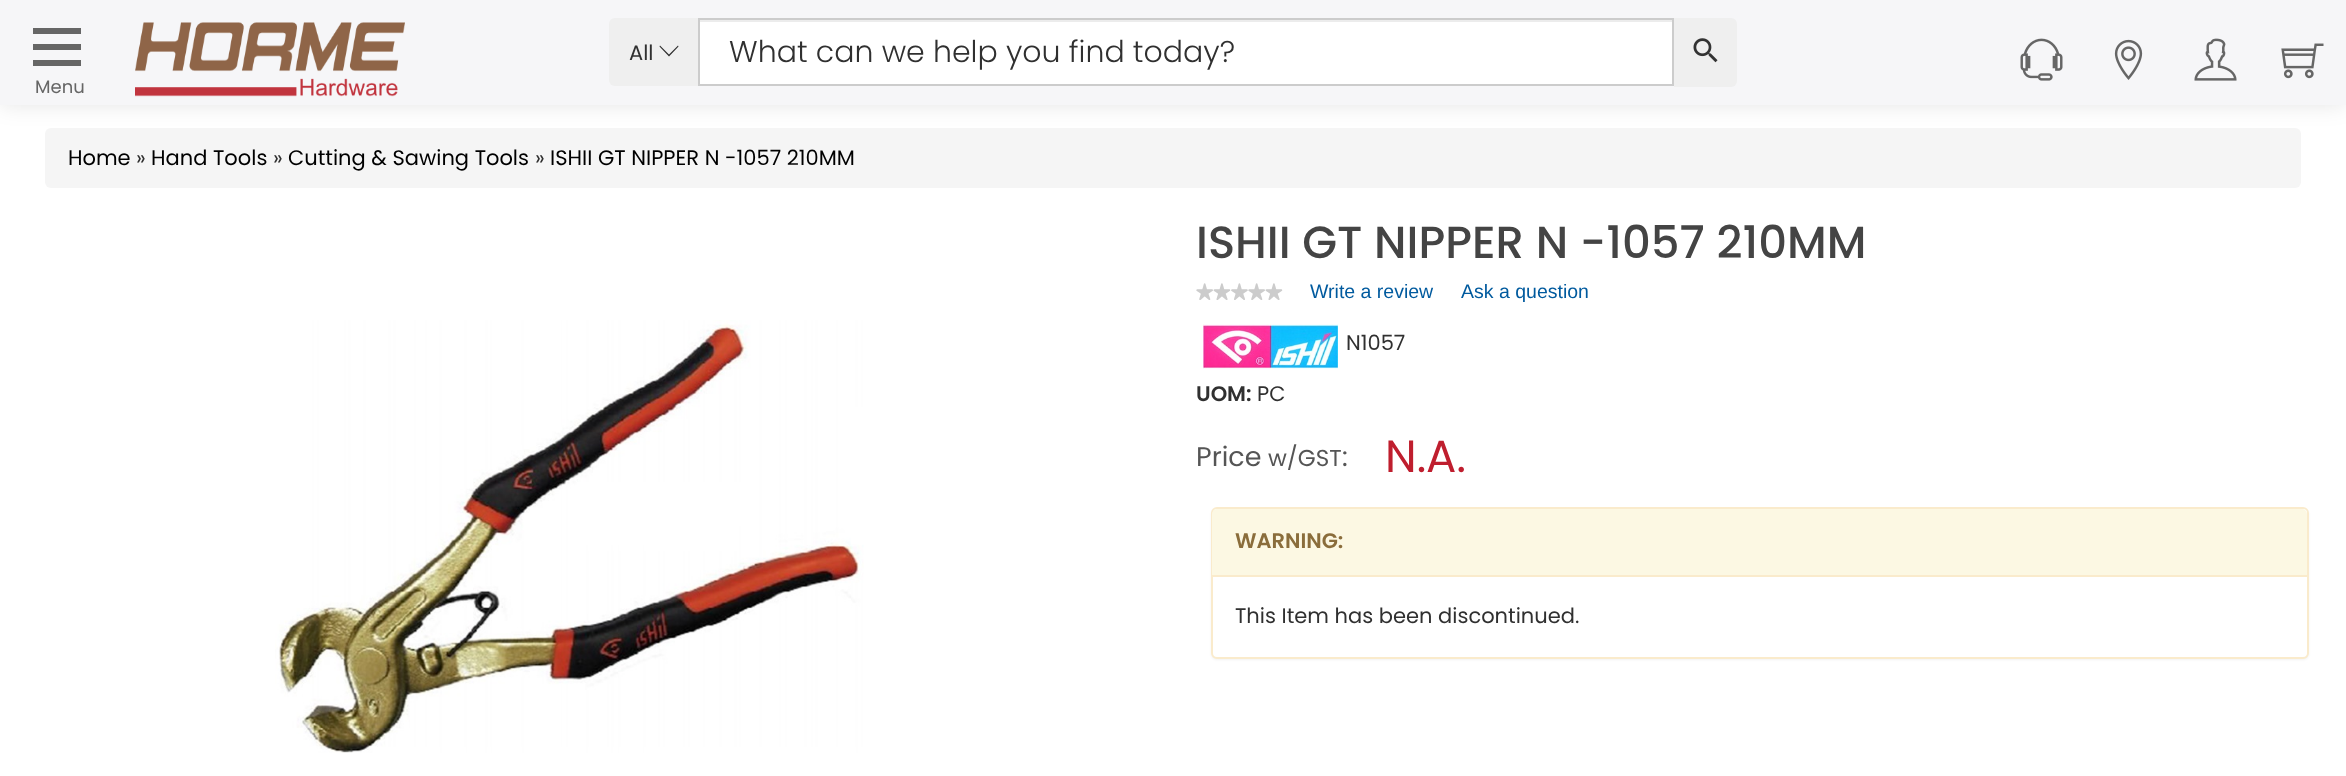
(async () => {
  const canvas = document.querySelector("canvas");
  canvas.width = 2346;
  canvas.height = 776;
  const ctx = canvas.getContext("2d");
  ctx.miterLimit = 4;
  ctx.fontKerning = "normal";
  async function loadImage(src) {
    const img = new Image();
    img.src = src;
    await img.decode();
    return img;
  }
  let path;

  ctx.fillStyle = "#ffffff";
  ctx.fillRect(0, 0, 2346, 776);
  ctx.fillStyle = "#f5f5f5";
  ctx.beginPath();
  ctx.roundRect(45, 128, 2256, 60, 6);
  ctx.fill();
  ctx.fillStyle = "rgba(0, 0, 0, 0.1)";
  ctx.filter = "blur(11px)";
  ctx.beginPath();
  ctx.rect(0, 0, 2346, 105);
  ctx.fill();
  ctx.filter = "none";
  ctx.fillStyle = "#f6f6f8";
  ctx.fillRect(0, 0, 2346, 105);
  ctx.fillStyle = "#efefef";
  ctx.beginPath();
  ctx.roundRect(609, 18, 90, 68, [6, 0, 0, 6]);
  ctx.fill();
  ctx.fillStyle = "#303030";
  path = new Path2D("M678.5 46.5L669 56.5L659.5 46.5L660 45.5L669 54.5L678 45.5Z");
  ctx.fill(path);
  ctx.fillStyle = "#ffffff";
  ctx.fillRect(700, 22, 972, 62);
  ctx.fillStyle = "#ececec";
  ctx.fillRect(699, 20, 974, 2);
  ctx.strokeStyle = "#cccccc";
  ctx.lineWidth = 2;
  ctx.strokeRect(699, 19, 974, 66);
  ctx.fillStyle = "#efefef";
  ctx.beginPath();
  ctx.roundRect(1674, 18, 63, 69, [0, 6, 6, 0]);
  ctx.fill();
  ctx.drawImage(await loadImage("img/1.png"), 1693, 38, 25, 25);
  ctx.drawImage(await loadImage("img/2.png"), 2020, 38, 43, 43);
  ctx.drawImage(await loadImage("img/3.png"), 2114, 39, 29, 41);
  ctx.drawImage(await loadImage("img/4.png"), 2194, 38, 43, 43);
  ctx.drawImage(await loadImage("img/5.png"), 2281, 43, 43, 36);
  ctx.fillStyle = "#666666";
  path = new Path2D("M81 28V34H33V28ZM33 50H81V44H33ZM33 66H81V60H33Z");
  ctx.fill(path);
  ctx.drawImage(await loadImage("img/6.png"), 135, 22, 270, 75);
  ctx.drawImage(await loadImage("img/7.png"), 275, 320, 589, 433);
  ctx.drawImage(await loadImage("img/8.png"), 1203, 324, 135, 45);
  ctx.fillStyle = "rgba(0, 0, 0, 0.05)";
  ctx.filter = "blur(1px)";
  ctx.beginPath();
  ctx.roundRect(1211, 509, 1098, 151, 6);
  ctx.fill();
  ctx.filter = "none";
  ctx.fillStyle = "#ffffff";
  ctx.beginPath();
  ctx.roundRect(1212, 508, 1096, 150, 5);
  ctx.fill();
  ctx.strokeStyle = "#faebcc";
  ctx.stroke();
  ctx.fillStyle = "#fcf8e3";
  ctx.beginPath();
  ctx.roundRect(1212, 509, 1095, 67, [5, 5, 0, 0]);
  ctx.fill();
  ctx.fillStyle = "#faebcc";
  ctx.fillRect(1212, 575, 1095, 2);
  ctx.font = "21px Poppins";
  ctx.fillStyle = "#303030";
  ctx.fillText("All", 629, 60);
  ctx.font = "300 30px Poppins";
  ctx.fillText("What can we help you find today?", 729, 62);
  ctx.font = "18px Poppins";
  ctx.fillStyle = "#666666";
  ctx.fillText("Menu", 35, 93);
  ctx.font = "21px Poppins";
  ctx.fillStyle = "#000000";
  ctx.fillText("Home", 68, 165);
  ctx.fillStyle = "#303030";
  ctx.fillText("»", 136, 165);
  ctx.fillStyle = "#000000";
  ctx.fillText("Hand Tools", 151, 165);
  ctx.fillStyle = "#303030";
  ctx.fillText("»", 273, 165);
  ctx.fillStyle = "#000000";
  ctx.fillText("Cutting & Sawing Tools", 288, 165);
  ctx.fillStyle = "#303030";
  ctx.fillText("»", 535, 165);
  ctx.fillStyle = "#000000";
  ctx.fillText("ISHII GT NIPPER N -1057 210MM", 550, 165);
  ctx.font = "500 45px Poppins";
  ctx.fillStyle = "#444444";
  ctx.fillText("ISHII GT NIPPER N -1057 210MM", 1196, 258);
  ctx.font = "22.5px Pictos";
  ctx.fillStyle = "#cccccc";
  ctx.fillText("★★★★★", 1196, 300);
  ctx.font = "19.5px Liberation Sans";
  ctx.fillStyle = "#005a9e";
  ctx.fillText("Write a review", 1310, 298);
  ctx.fillText("Ask a question", 1461, 298);
  ctx.font = "21px Poppins";
  ctx.fillStyle = "#303030";
  ctx.fillText("N1057", 1346, 350);
  ctx.font = "600 21px Poppins";
  ctx.fillText("UOM:", 1196, 401);
  ctx.font = "21px Poppins";
  ctx.fillText("PC", 1257, 401);
  ctx.font = "27px Poppins";
  ctx.fillStyle = "#555555";
  ctx.fillText("Price", 1196, 466);
  ctx.font = "23px Poppins";
  ctx.fillText("w/GST", 1268, 466);
  ctx.font = "27px Poppins";
  ctx.fillText(":", 1342, 466);
  ctx.font = "45px Poppins";
  ctx.fillStyle = "#bf1e2e";
  ctx.fillText("N.A.", 1385, 472);
  ctx.font = "600 21px Poppins";
  ctx.fillStyle = "#8a6d3b";
  ctx.fillText("WARNING:", 1235, 548);
  ctx.font = "21px Poppins";
  ctx.fillStyle = "#303030";
  ctx.fillText("This Item has been discontinued.", 1235, 623);
})();
